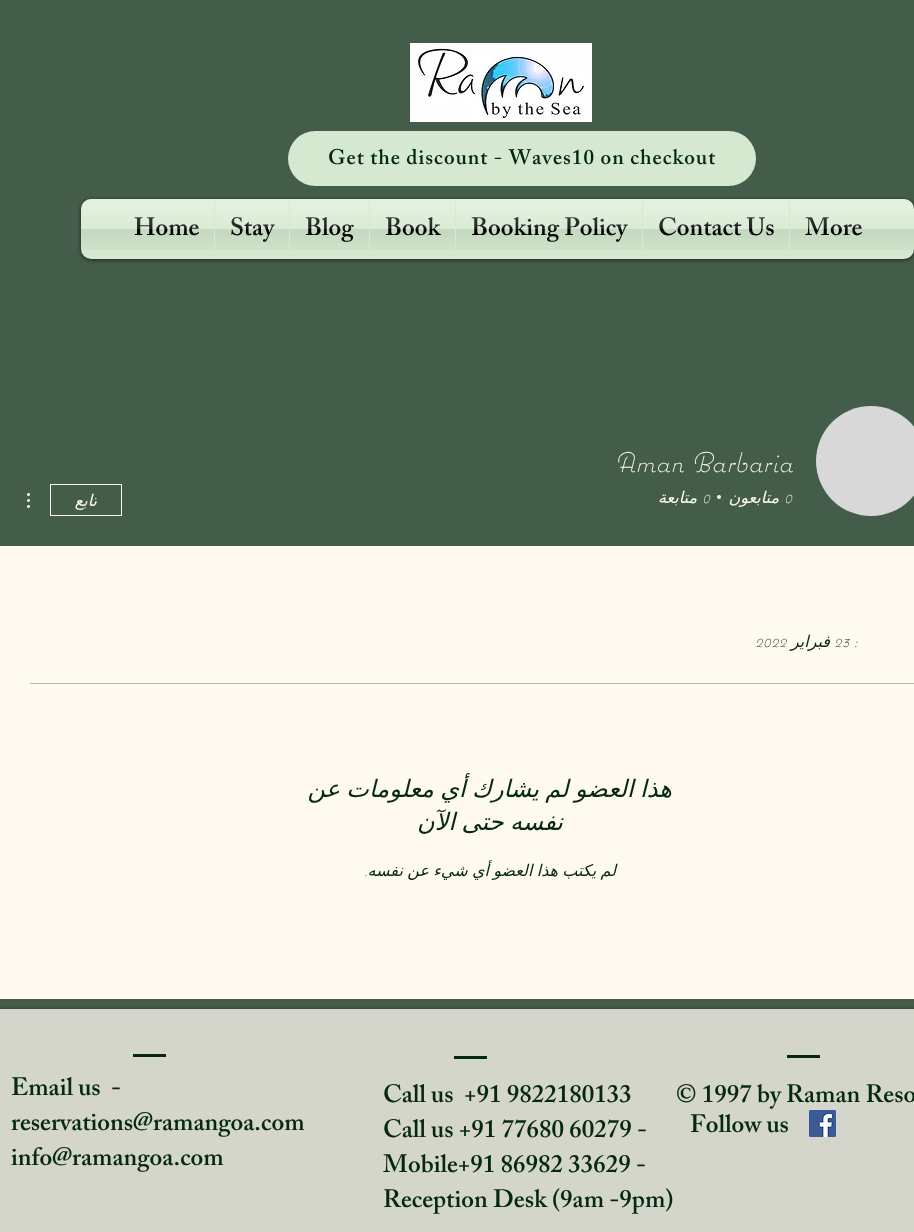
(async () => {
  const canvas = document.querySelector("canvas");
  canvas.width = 914;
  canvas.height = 1232;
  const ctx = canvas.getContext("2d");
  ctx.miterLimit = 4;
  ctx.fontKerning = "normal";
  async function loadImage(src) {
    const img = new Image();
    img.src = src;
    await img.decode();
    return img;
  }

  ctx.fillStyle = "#445d4a";
  ctx.fillRect(0, 0, 914, 1232);
  ctx.drawImage(await loadImage("img/1.png"), 410, 43, 182, 79);
  ctx.fillStyle = "#d4e9cf";
  ctx.beginPath();
  ctx.roundRect(288, 131, 468, 55, 27.5);
  ctx.fill();
  ctx.fillStyle = "rgba(0, 0, 0, 0.6)";
  ctx.filter = "blur(2px)";
  ctx.beginPath();
  ctx.roundRect(81, 200, 833, 60, 10);
  ctx.fill();
  ctx.filter = "none";
  ctx.fillStyle = "#d4e9cf";
  ctx.beginPath();
  ctx.roundRect(81, 199, 833, 60, 10);
  ctx.fill();
  ctx.drawImage(await loadImage("img/2.png"), 81, 199, 833, 51);
  ctx.fillRect(119, 199, 758, 51);
  ctx.drawImage(await loadImage("img/10.png"), 27, 493, 3, 15);
  ctx.strokeStyle = "#fffaf1";
  ctx.strokeRect(50.5, 484.5, 71, 31);
  ctx.fillStyle = "#fffaf1";
  ctx.beginPath();
  ctx.arc(719, 497, 2, 0, Math.PI * 2);
  ctx.fill();
  ctx.fillStyle = "#d8d8d8";
  ctx.beginPath();
  ctx.arc(871, 461, 55, 0, Math.PI * 2);
  ctx.fill();
  ctx.fillStyle = "#fffaf1";
  ctx.fillRect(0, 546, 914, 453);
  ctx.fillStyle = "#b4bbae";
  ctx.fillRect(30, 683, 884, 1);
  ctx.fillStyle = "rgba(0, 0, 0, 0.6)";
  ctx.filter = "blur(2px)";
  ctx.beginPath();
  ctx.rect(0, 1010, 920, 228);
  ctx.fill();
  ctx.filter = "none";
  for (const [x, y, w, h, color] of [
    [0, 1009, 914, 223, "#d4d6cb"],
    [133, 1054, 33, 3, "#052812"],
    [454, 1056, 33, 3, "#052812"],
    [787, 1055, 33, 3, "#052812"],
  ]) {
    ctx.fillStyle = color;
    ctx.fillRect(x, y, w, h);
  }
  ctx.drawImage(await loadImage("img/11.png"), 809, 1110, 27, 27);
  ctx.letterSpacing = "1.05px";
  ctx.font = "600 21px 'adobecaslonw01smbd'";
  ctx.fillText("Get the discount - Waves10 on checkout", 328, 164);
  ctx.letterSpacing = "0px";
  ctx.font = "600 25px 'adobecaslonw01smbd'";
  ctx.fillStyle = "#000000";
  ctx.fillText("Home", 134, 235);
  ctx.drawImage(await loadImage("img/3.png"), 119, 199, 95, 51);
  ctx.fillText("Stay", 230, 235);
  ctx.drawImage(await loadImage("img/4.png"), 215, 199, 74, 51);
  ctx.fillText("Blog", 305, 235);
  ctx.drawImage(await loadImage("img/5.png"), 290, 199, 79, 51);
  ctx.fillText("Book", 385, 235);
  ctx.drawImage(await loadImage("img/6.png"), 370, 199, 85, 51);
  ctx.fillText("Booking Policy", 471, 235);
  ctx.drawImage(await loadImage("img/7.png"), 456, 199, 186, 51);
  ctx.fillText("Contact Us", 658, 235);
  ctx.drawImage(await loadImage("img/8.png"), 643, 199, 146, 51);
  ctx.fillText("More", 805, 235);
  ctx.drawImage(await loadImage("img/9.png"), 790, 199, 87, 51);
  ctx.save();
  ctx.beginPath();
  ctx.rect(75, 489, 22, 22);
  ctx.clip();
  ctx.direction = "rtl";
  ctx.font = "italic 16px DejaVu Sans";
  ctx.fillStyle = "#fffaf1";
  ctx.fillText("تابع", 97, 506);
  ctx.restore();
  ctx.font = "italic 300 28px 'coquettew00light'";
  ctx.fillStyle = "#fffaf1";
  ctx.fillText("Aman Barbaria", 614, 472);
  ctx.direction = "rtl";
  ctx.font = "italic 16px DejaVu Sans";
  ctx.fillText("متابعة", 697, 503);
  ctx.direction = "ltr";
  ctx.font = "italic 300 16px 'coquettew00light'";
  ctx.fillText("0", 702, 503);
  ctx.direction = "rtl";
  ctx.font = "italic 16px DejaVu Sans";
  ctx.fillText("متابعون", 779, 503);
  ctx.direction = "ltr";
  ctx.font = "italic 300 16px 'coquettew00light'";
  ctx.fillText("0", 784, 503);
  ctx.fillStyle = "#052812";
  ctx.fillText("2022", 755, 647);
  ctx.direction = "rtl";
  ctx.font = "italic 16px DejaVu Sans";
  ctx.fillText("فبراير", 830, 647);
  ctx.direction = "ltr";
  ctx.font = "italic 300 16px 'coquettew00light'";
  ctx.fillText("23", 834, 647);
  ctx.direction = "rtl";
  ctx.fillText(":", 858, 647);
  ctx.wordSpacing = "-1.25px";
  ctx.font = "italic 24px DejaVu Sans";
  ctx.fillText("هذا العضو لم يشارك أي معلومات عن", 672, 797);
  ctx.fillText("نفسه حتى الآن", 563, 830);
  ctx.wordSpacing = "0px";
  ctx.font = "italic 300 16px 'coquettew00light'";
  ctx.fillText(".", 368, 876);
  ctx.wordSpacing = "-0.75px";
  ctx.font = "italic 16px DejaVu Sans";
  ctx.fillText("لم يكتب هذا العضو أي شيء عن نفسه", 616, 876);
  ctx.wordSpacing = "0px";
  ctx.direction = "ltr";
  ctx.font = "600 25px 'adobecaslonw01smbd'";
  for (const [text, x, y] of [
    ["Email us  -", 11, 1095],
    ["reservations@ramangoa.com", 11, 1130],
    ["info@ramangoa.com", 11, 1165],
    ["© 1997 by Raman Reso", 676, 1102],
    ["Follow us", 690, 1132],
    ["Call us  +91 9822180133", 383, 1102],
    ["Call us +91 77680 60279 -", 383, 1137],
    ["Mobile+91 86982 33629 -", 383, 1172],
    ["Reception Desk (9am -9pm)", 383, 1207],
  ]) {
    ctx.fillText(text, x, y);
  }
})();
